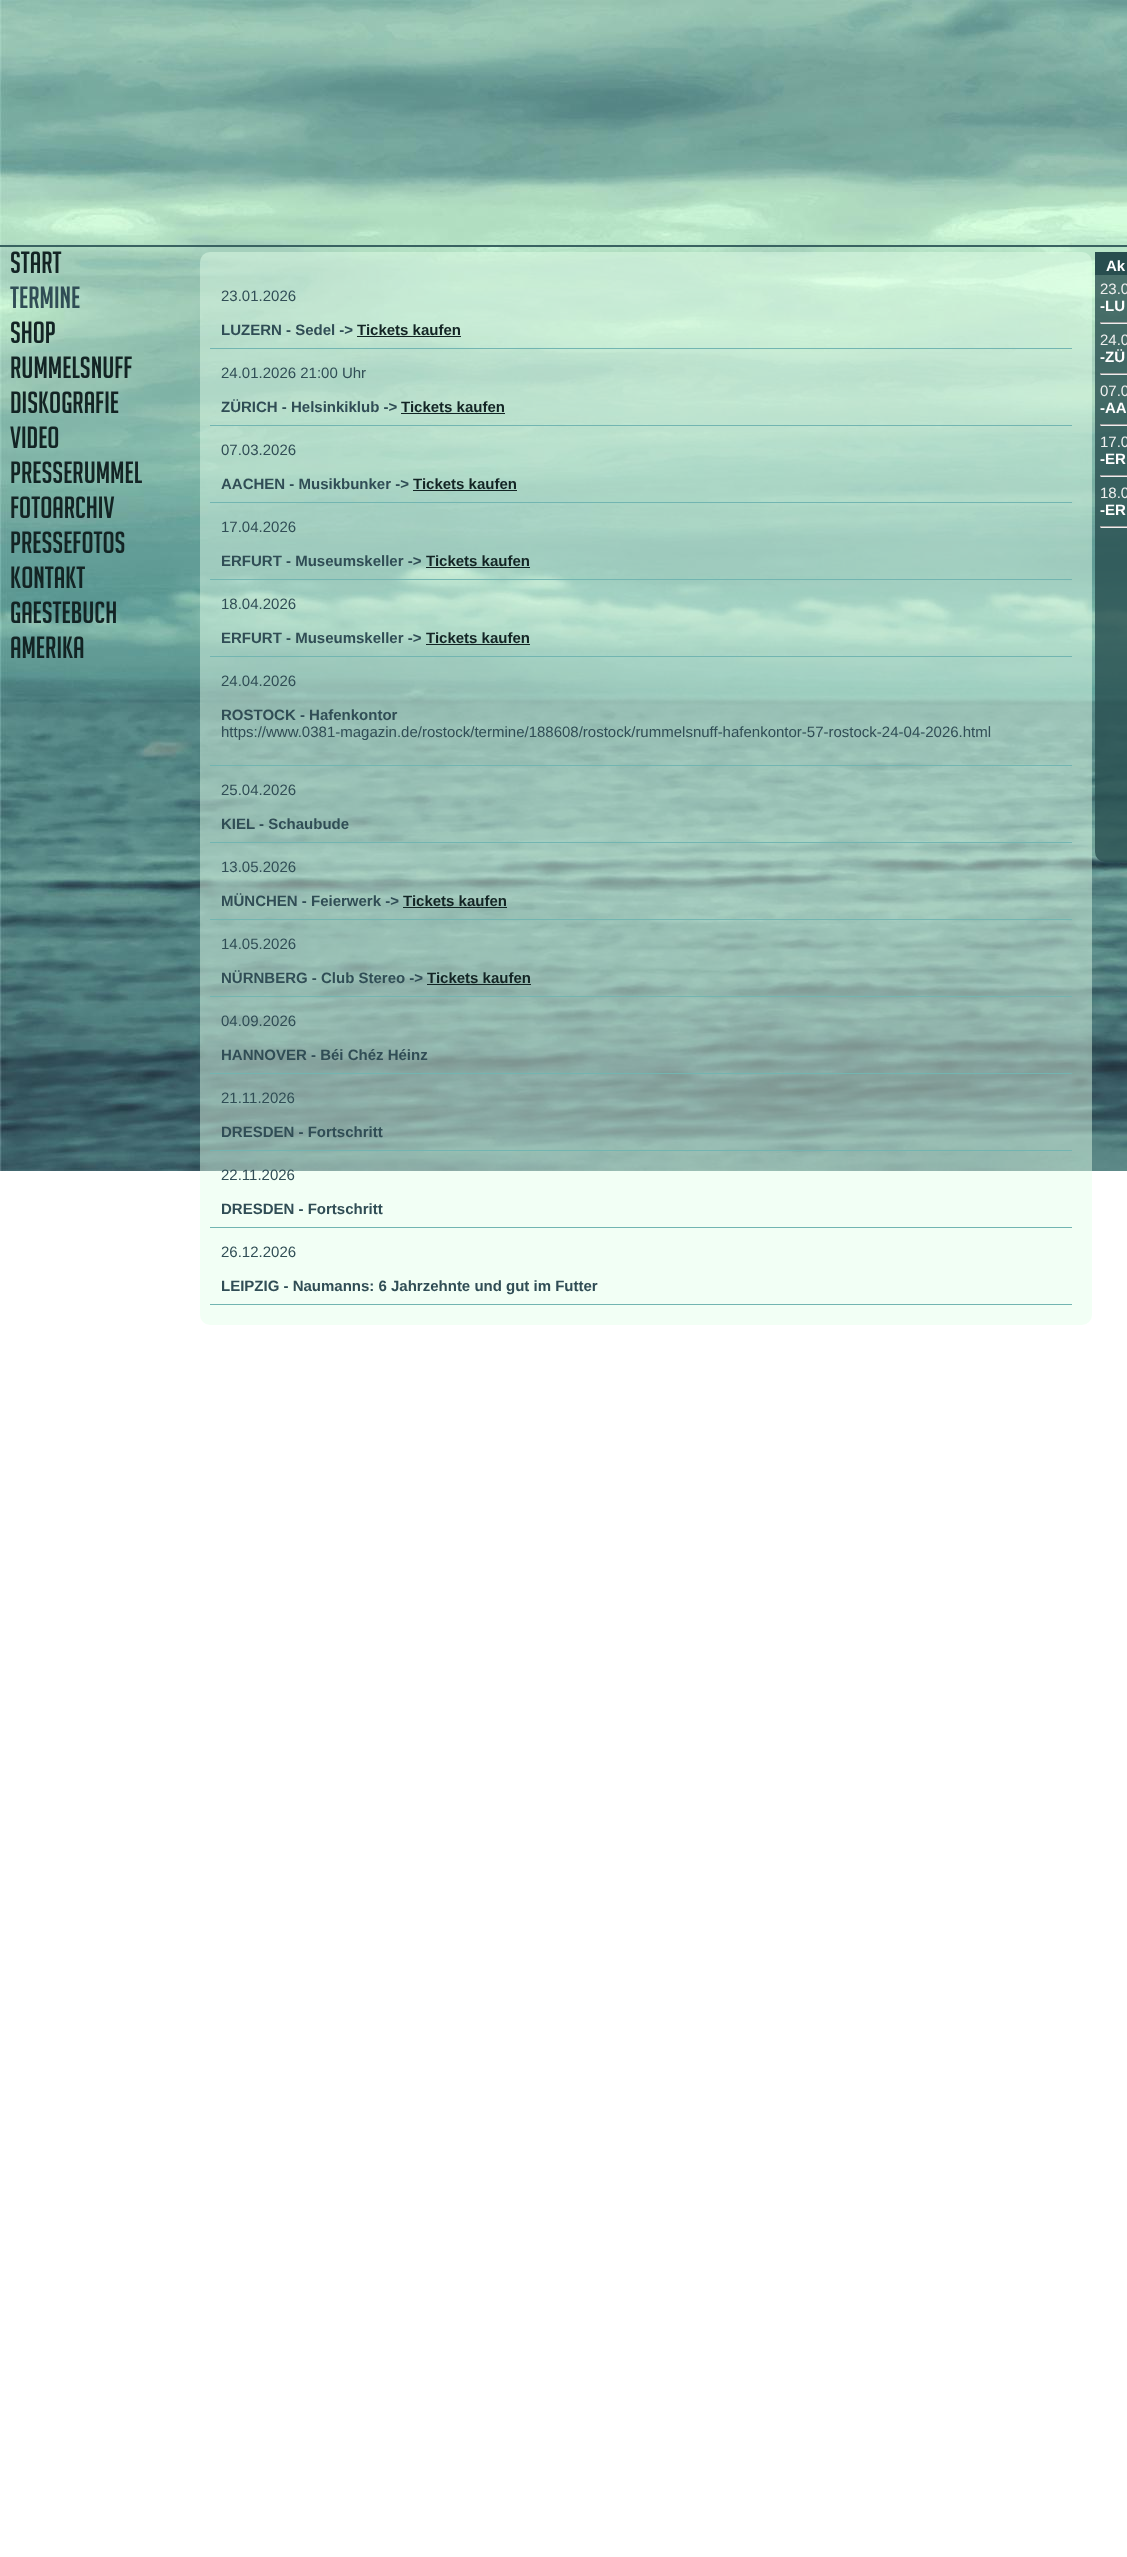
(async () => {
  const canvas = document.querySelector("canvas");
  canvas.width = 1127;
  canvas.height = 2557;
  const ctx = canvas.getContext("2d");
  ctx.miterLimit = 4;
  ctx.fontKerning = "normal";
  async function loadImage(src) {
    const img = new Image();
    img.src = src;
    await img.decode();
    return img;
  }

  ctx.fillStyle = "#ffffff";
  ctx.fillRect(0, 0, 1127, 2557);
  ctx.drawImage(await loadImage("img/1.png"), 0, 0, 1127, 1171);
  ctx.fillStyle = "#396261";
  ctx.fillRect(0, 245, 1127, 2);
  ctx.drawImage(await loadImage("img/2.png"), 200, 252, 892, 1073);
  for (const [x, y, w, h, color] of [
    [210, 348, 862, 1, "#72b5b1"],
    [357, 336, 104, 1, "#132424"],
    [210, 425, 862, 1, "#72b5b1"],
    [401, 413, 104, 1, "#132424"],
    [210, 502, 862, 1, "#72b5b1"],
    [413, 490, 104, 1, "#132424"],
    [210, 579, 862, 1, "#72b5b1"],
    [426, 567, 104, 1, "#132424"],
    [210, 656, 862, 1, "#72b5b1"],
    [426, 644, 104, 1, "#132424"],
    [210, 765, 862, 1, "#72b5b1"],
    [210, 842, 862, 1, "#72b5b1"],
    [210, 919, 862, 1, "#72b5b1"],
    [403, 907, 104, 1, "#132424"],
    [210, 996, 862, 1, "#72b5b1"],
    [427, 984, 104, 1, "#132424"],
    [210, 1073, 862, 1, "#72b5b1"],
    [210, 1150, 862, 1, "#72b5b1"],
    [210, 1227, 862, 1, "#72b5b1"],
    [210, 1304, 862, 1, "#72b5b1"],
  ]) {
    ctx.fillStyle = color;
    ctx.fillRect(x, y, w, h);
  }
  ctx.drawImage(await loadImage("img/3.png"), 1095, 275, 32, 587);
  for (const [x, y, w, h, color] of [
    [1095, 252, 32, 23, "#284e4f"],
    [1100, 322, 27, 1, "#9f9f9f"],
    [1100, 323, 27, 1, "#eeeeee"],
    [1100, 322, 1, 2, "#9f9f9f"],
    [1100, 373, 27, 1, "#9f9f9f"],
    [1100, 374, 27, 1, "#eeeeee"],
    [1100, 373, 1, 2, "#9f9f9f"],
    [1100, 424, 27, 1, "#9f9f9f"],
    [1100, 425, 27, 1, "#eeeeee"],
    [1100, 424, 1, 2, "#9f9f9f"],
    [1100, 475, 27, 1, "#9f9f9f"],
    [1100, 476, 27, 1, "#eeeeee"],
    [1100, 475, 1, 2, "#9f9f9f"],
    [1100, 526, 27, 1, "#9f9f9f"],
    [1100, 527, 27, 1, "#eeeeee"],
    [1100, 526, 1, 2, "#9f9f9f"],
  ]) {
    ctx.fillStyle = color;
    ctx.fillRect(x, y, w, h);
  }
  ctx.font = "30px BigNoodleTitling";
  ctx.fillStyle = "#132424";
  ctx.fillText("START", 10, 273);
  ctx.fillStyle = "#304d55";
  ctx.fillText("TERMINE", 10, 308);
  ctx.fillStyle = "#132424";
  for (const [text, x, y] of [
    ["SHOP", 10, 343],
    ["RUMMELSNUFF", 10, 378],
    ["DISKOGRAFIE", 10, 413],
    ["VIDEO", 10, 448],
    ["PRESSERUMMEL", 10, 483],
    ["FOTOARCHIV", 10, 518],
    ["PRESSEFOTOS", 10, 553],
    ["KONTAKT", 10, 588],
    ["GAESTEBUCH", 10, 623],
    ["AMERIKA", 10, 658],
  ]) {
    ctx.fillText(text, x, y);
  }
  ctx.font = "15px Liberation Sans";
  ctx.fillStyle = "#304d55";
  ctx.fillText("23.01.2026", 221, 301);
  ctx.font = "bold 15px Liberation Sans";
  ctx.fillText("LUZERN - Sedel ->", 221, 335);
  ctx.fillStyle = "#132424";
  ctx.fillText("Tickets kaufen", 357, 335);
  ctx.font = "15px Liberation Sans";
  ctx.fillStyle = "#304d55";
  ctx.fillText("24.01.2026 21:00 Uhr", 221, 378);
  ctx.font = "bold 15px Liberation Sans";
  ctx.fillText("ZÜRICH - Helsinkiklub ->", 221, 412);
  ctx.fillStyle = "#132424";
  ctx.fillText("Tickets kaufen", 401, 412);
  ctx.font = "15px Liberation Sans";
  ctx.fillStyle = "#304d55";
  ctx.fillText("07.03.2026", 221, 455);
  ctx.font = "bold 15px Liberation Sans";
  ctx.fillText("AACHEN - Musikbunker ->", 221, 489);
  ctx.fillStyle = "#132424";
  ctx.fillText("Tickets kaufen", 413, 489);
  ctx.font = "15px Liberation Sans";
  ctx.fillStyle = "#304d55";
  ctx.fillText("17.04.2026", 221, 532);
  ctx.font = "bold 15px Liberation Sans";
  ctx.fillText("ERFURT - Museumskeller ->", 221, 566);
  ctx.fillStyle = "#132424";
  ctx.fillText("Tickets kaufen", 426, 566);
  ctx.font = "15px Liberation Sans";
  ctx.fillStyle = "#304d55";
  ctx.fillText("18.04.2026", 221, 609);
  ctx.font = "bold 15px Liberation Sans";
  ctx.fillText("ERFURT - Museumskeller ->", 221, 643);
  ctx.fillStyle = "#132424";
  ctx.fillText("Tickets kaufen", 426, 643);
  ctx.font = "15px Liberation Sans";
  ctx.fillStyle = "#304d55";
  ctx.fillText("24.04.2026", 221, 686);
  ctx.font = "bold 15px Liberation Sans";
  ctx.fillText("ROSTOCK - Hafenkontor", 221, 720);
  ctx.font = "15px Liberation Sans";
  ctx.fillText("https://www.0381-magazin.de/rostock/termine/188608/rostock/rummelsnuff-hafenkontor-57-rostock-24-04-2026.html", 221, 737);
  ctx.fillText("25.04.2026", 221, 795);
  ctx.font = "bold 15px Liberation Sans";
  ctx.fillText("KIEL - Schaubude", 221, 829);
  ctx.font = "15px Liberation Sans";
  ctx.fillText("13.05.2026", 221, 872);
  ctx.font = "bold 15px Liberation Sans";
  ctx.fillText("MÜNCHEN - Feierwerk ->", 221, 906);
  ctx.fillStyle = "#132424";
  ctx.fillText("Tickets kaufen", 403, 906);
  ctx.font = "15px Liberation Sans";
  ctx.fillStyle = "#304d55";
  ctx.fillText("14.05.2026", 221, 949);
  ctx.font = "bold 15px Liberation Sans";
  ctx.fillText("NÜRNBERG - Club Stereo ->", 221, 983);
  ctx.fillStyle = "#132424";
  ctx.fillText("Tickets kaufen", 427, 983);
  ctx.font = "15px Liberation Sans";
  ctx.fillStyle = "#304d55";
  ctx.fillText("04.09.2026", 221, 1026);
  ctx.font = "bold 15px Liberation Sans";
  ctx.fillText("HANNOVER - Béi Chéz Héinz", 221, 1060);
  ctx.font = "15px Liberation Sans";
  ctx.fillText("21.11.2026", 221, 1103);
  ctx.font = "bold 15px Liberation Sans";
  ctx.fillText("DRESDEN - Fortschritt", 221, 1137);
  ctx.font = "15px Liberation Sans";
  ctx.fillText("22.11.2026", 221, 1180);
  ctx.font = "bold 15px Liberation Sans";
  ctx.fillText("DRESDEN - Fortschritt", 221, 1214);
  ctx.font = "15px Liberation Sans";
  ctx.fillText("26.12.2026", 221, 1257);
  ctx.font = "bold 15px Liberation Sans";
  ctx.fillText("LEIPZIG - Naumanns: 6 Jahrzehnte und gut im Futter", 221, 1291);
  ctx.fillStyle = "#ffffff";
  ctx.fillText("Ak", 1106, 271);
  ctx.font = "15px Liberation Sans";
  ctx.fillStyle = "#efefef";
  ctx.fillText("23.0", 1100, 294);
  ctx.font = "bold 15px Liberation Sans";
  ctx.fillStyle = "#ffffff";
  ctx.fillText("-LU", 1100, 311);
  ctx.font = "15px Liberation Sans";
  ctx.fillStyle = "#efefef";
  ctx.fillText("24.0", 1100, 345);
  ctx.font = "bold 15px Liberation Sans";
  ctx.fillStyle = "#ffffff";
  ctx.fillText("-ZÜ", 1100, 362);
  ctx.font = "15px Liberation Sans";
  ctx.fillStyle = "#efefef";
  ctx.fillText("07.0", 1100, 396);
  ctx.font = "bold 15px Liberation Sans";
  ctx.fillStyle = "#ffffff";
  ctx.fillText("-AA", 1100, 413);
  ctx.font = "15px Liberation Sans";
  ctx.fillStyle = "#efefef";
  ctx.fillText("17.0", 1100, 447);
  ctx.font = "bold 15px Liberation Sans";
  ctx.fillStyle = "#ffffff";
  ctx.fillText("-ER", 1100, 464);
  ctx.font = "15px Liberation Sans";
  ctx.fillStyle = "#efefef";
  ctx.fillText("18.0", 1100, 498);
  ctx.font = "bold 15px Liberation Sans";
  ctx.fillStyle = "#ffffff";
  ctx.fillText("-ER", 1100, 515);
})();
